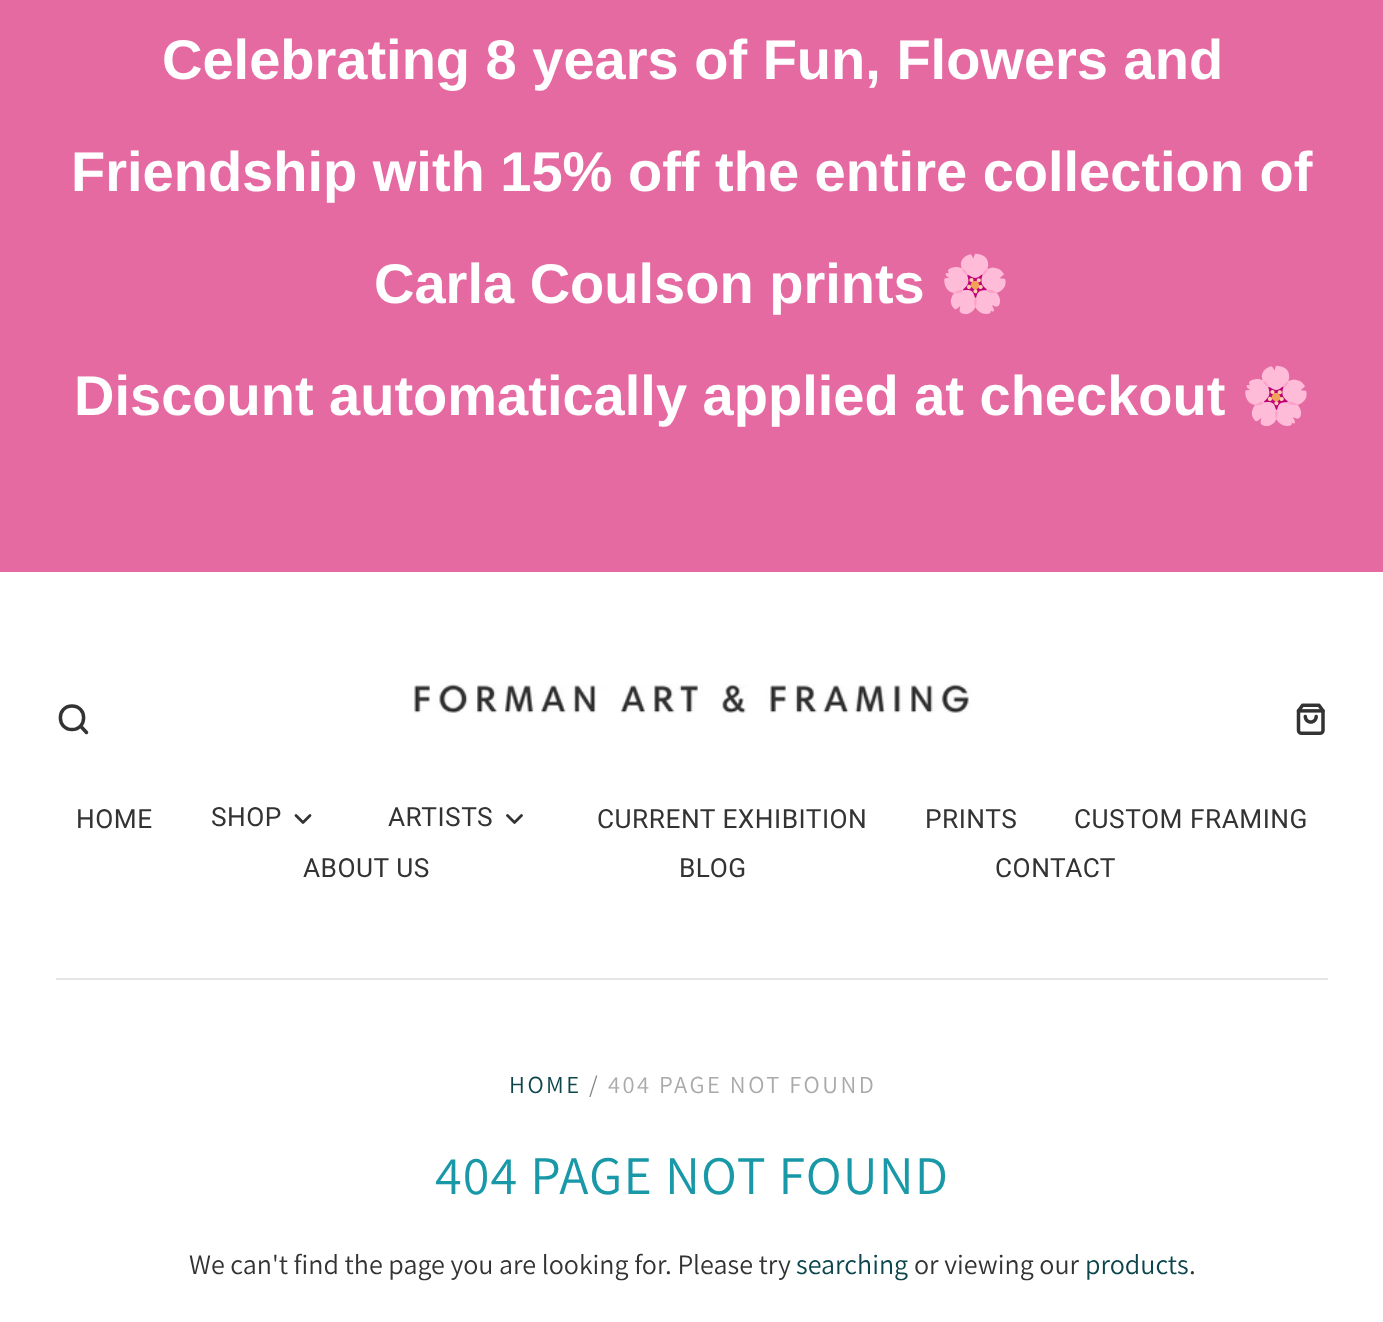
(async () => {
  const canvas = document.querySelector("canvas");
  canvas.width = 1383;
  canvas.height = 1322;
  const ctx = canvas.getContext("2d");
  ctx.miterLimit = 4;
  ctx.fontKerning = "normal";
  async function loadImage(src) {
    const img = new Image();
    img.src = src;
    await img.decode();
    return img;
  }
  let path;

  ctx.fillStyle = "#ffffff";
  ctx.fillRect(0, 0, 1383, 1322);
  ctx.fillStyle = "#e66aa2";
  ctx.fillRect(0, 0, 1383, 572);
  ctx.fillStyle = "#e5e5e5";
  ctx.fillRect(56, 978, 1272, 2);
  ctx.drawImage(await loadImage("img/1.png"), 413, 684, 558, 29);
  path = new Path2D("M72 706C56.5 706 56.5 729.5 72 729.5C87.5 729.5 87.5 706 72 706ZM86.5 732.5L80.5 726Z");
  ctx.strokeStyle = "#333333";
  ctx.lineWidth = 3.5;
  ctx.lineCap = "round";
  ctx.lineJoin = "round";
  ctx.stroke(path);
  ctx.drawImage(await loadImage("img/2.png"), 1296, 703, 29, 32);
  path = new Path2D("M296 815.5L303 822.5L310 815.5");
  ctx.lineWidth = 2.8;
  ctx.stroke(path);
  path = new Path2D("M507.5 815.5L514.5 822.5L521.5 815.5");
  ctx.stroke(path);
  ctx.font = "bold 56px Liberation Sans";
  ctx.fillStyle = "#ffffff";
  for (const [text, x, y] of [
    ["Celebrating 8 years of Fun, Flowers and", 162, 79],
    ["Friendship with 15% off the entire collection of", 71, 191],
    ["Carla Coulson prints", 374, 303],
  ]) {
    ctx.fillText(text, x, y);
  }
  ctx.font = "bold 56px Noto Color Emoji";
  ctx.fillText("🌸", 940, 303);
  ctx.font = "bold 56px Liberation Sans";
  ctx.fillText("Discount automatically applied at checkout", 74, 415);
  ctx.font = "bold 56px Noto Color Emoji";
  ctx.fillText("🌸", 1241, 415);
  ctx.letterSpacing = "0.5px";
  ctx.font = "26.25px Roboto";
  ctx.fillStyle = "#333333";
  for (const [text, x, y] of [
    ["HOME", 76, 828],
    ["SHOP", 211, 826],
    ["ARTISTS", 388, 826],
    ["CURRENT EXHIBITION", 597, 828],
    ["PRINTS", 925, 828],
    ["CUSTOM FRAMING", 1074, 828],
    ["ABOUT US", 303, 877],
    ["BLOG", 679, 877],
    ["CONTACT", 995, 877],
  ]) {
    ctx.fillText(text, x, y);
  }
  ctx.letterSpacing = "2.5px";
  ctx.font = "24.5px Assistant";
  ctx.fillStyle = "#0c454c";
  ctx.fillText("HOME", 509, 1093);
  ctx.fillStyle = "#858585";
  ctx.fillText("/", 589, 1093);
  ctx.fillStyle = "#aaaaaa";
  ctx.fillText("404 PAGE NOT FOUND", 608, 1093);
  ctx.letterSpacing = "1.1px";
  ctx.font = "54.25px Assistant";
  ctx.fillStyle = "#1999a8";
  ctx.fillText("404 PAGE NOT FOUND", 435, 1194);
  ctx.letterSpacing = "0px";
  ctx.font = "28px Assistant";
  ctx.fillStyle = "#333333";
  ctx.fillText("We can't find the page you are looking for. Please try", 189, 1274);
  ctx.fillStyle = "#0c454c";
  ctx.fillText("searching", 796, 1274);
  ctx.fillStyle = "#333333";
  ctx.fillText("or viewing our", 914, 1274);
  ctx.fillStyle = "#0c454c";
  ctx.fillText("products", 1085, 1274);
  ctx.fillStyle = "#333333";
  ctx.fillText(".", 1189, 1274);
})();
